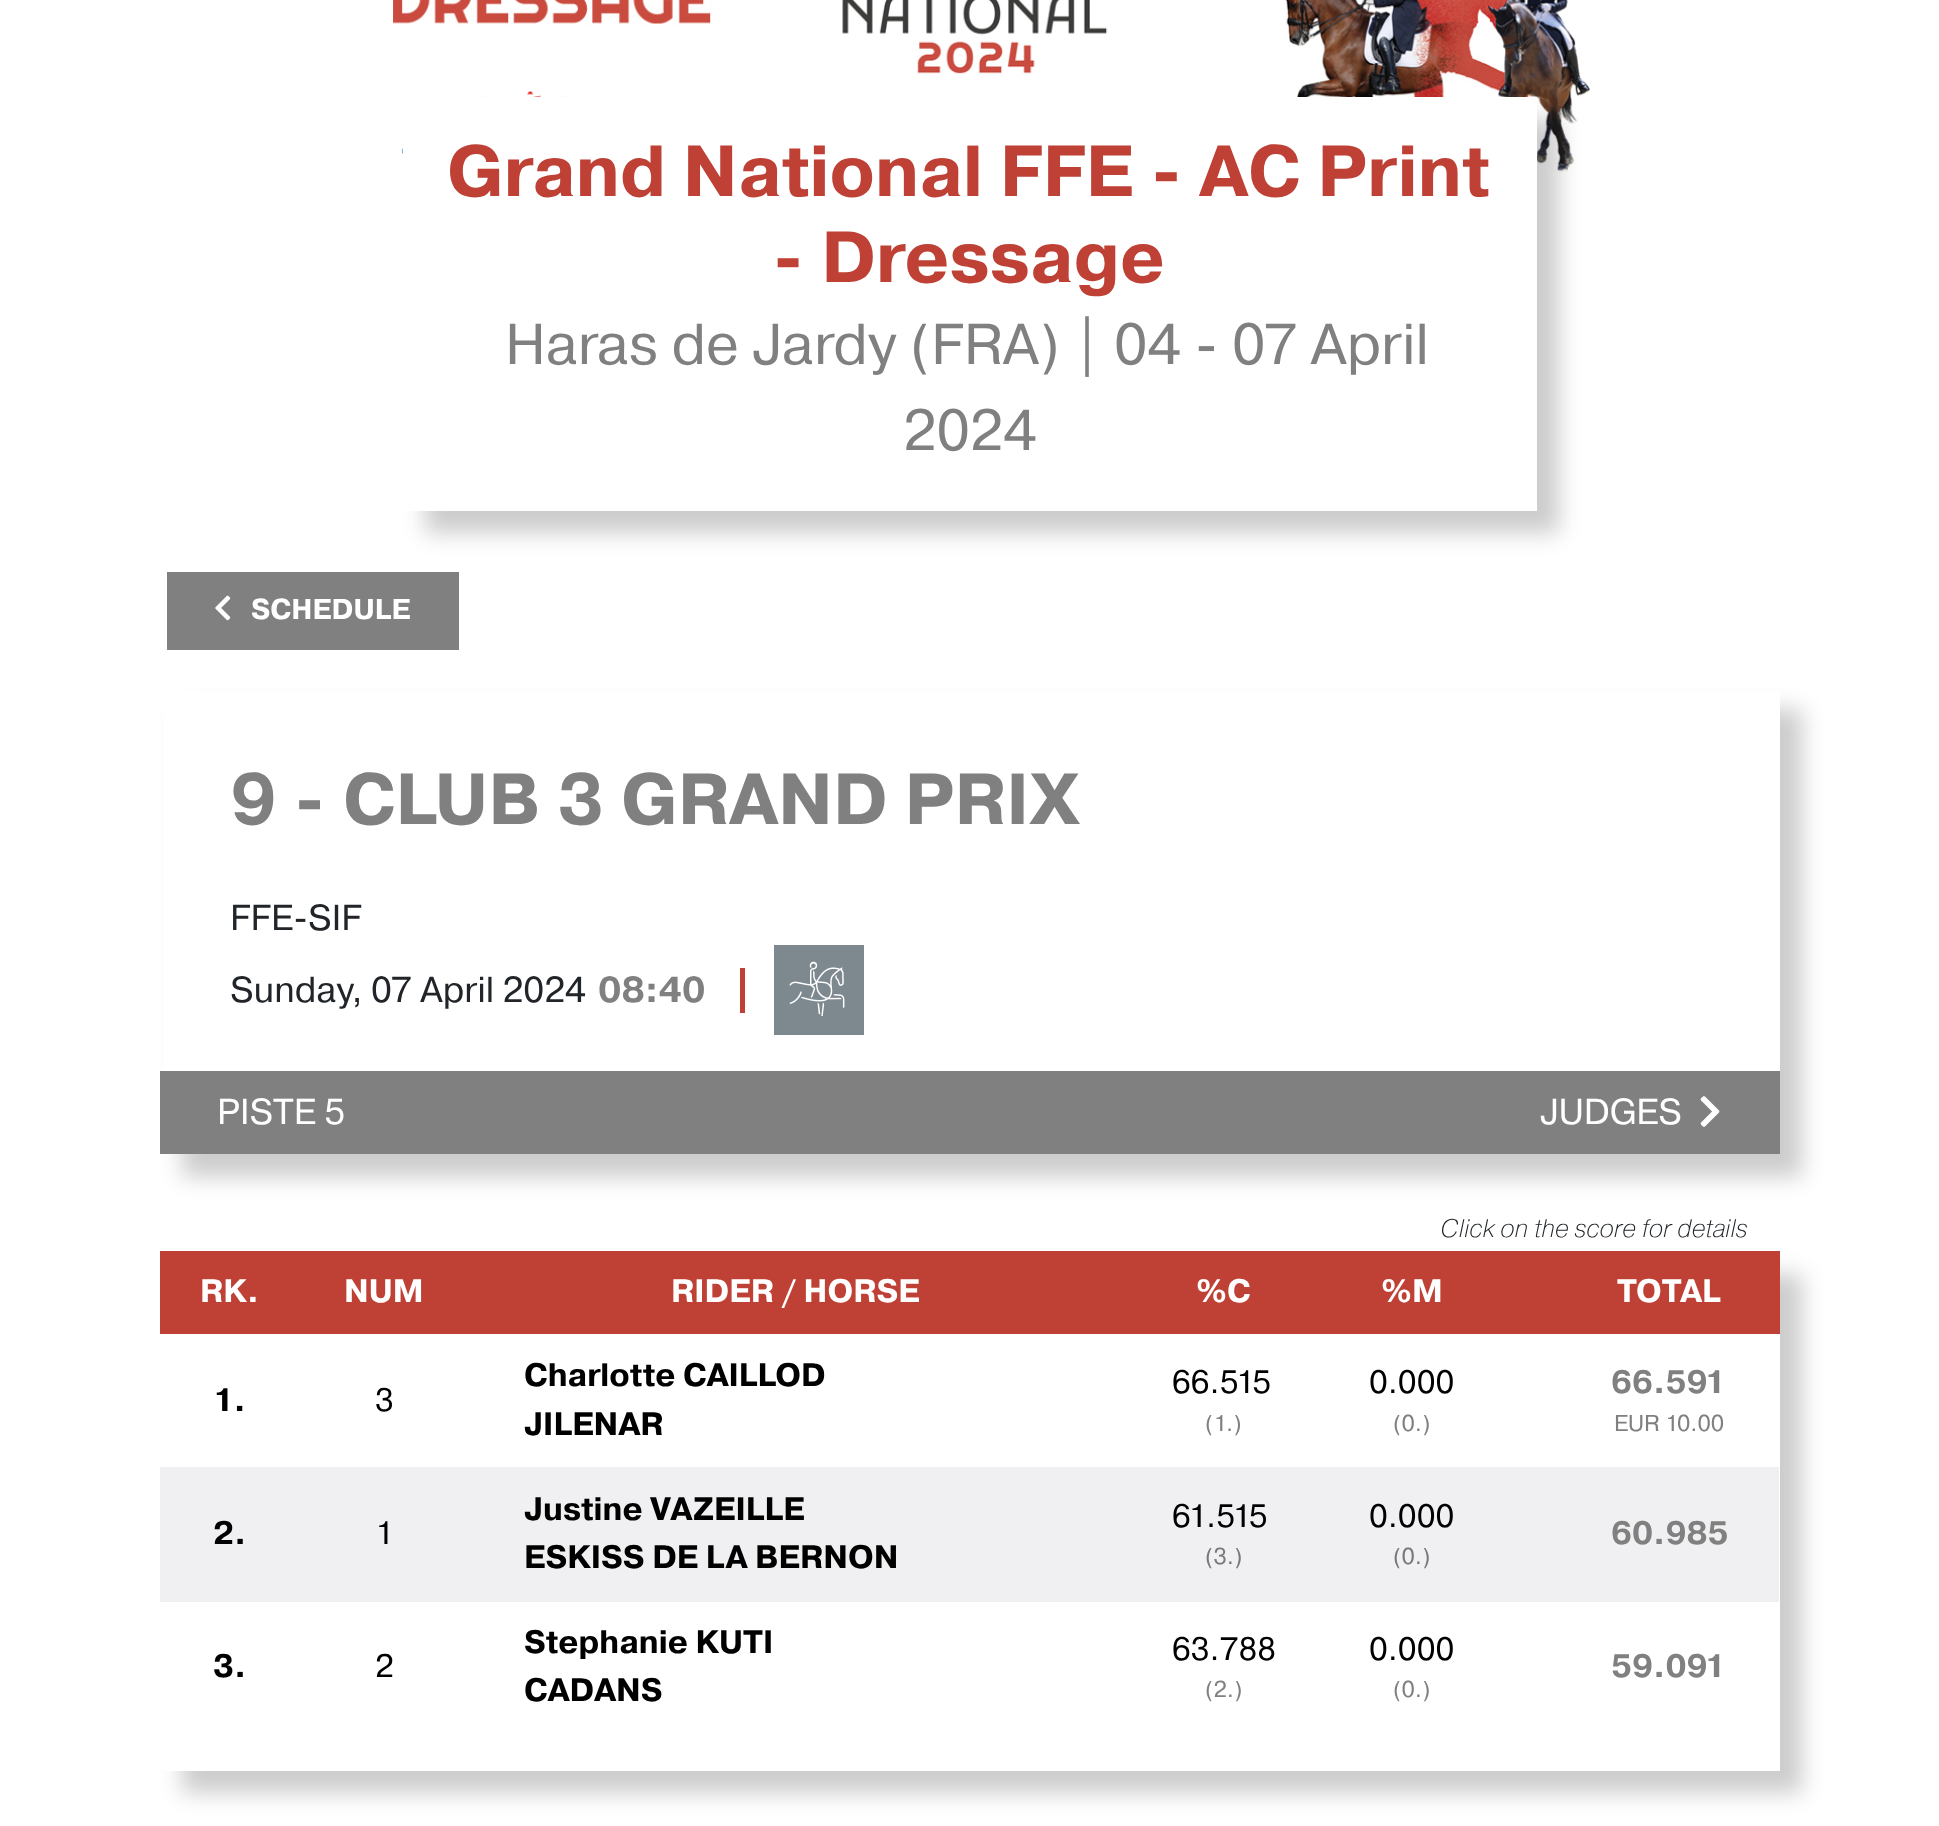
(async () => {
  const canvas = document.querySelector("canvas");
  canvas.width = 1939;
  canvas.height = 1826;
  const ctx = canvas.getContext("2d");
  ctx.miterLimit = 4;
  ctx.fontKerning = "normal";
  async function loadImage(src) {
    const img = new Image();
    img.src = src;
    await img.decode();
    return img;
  }
  let path;

  ctx.fillStyle = "#ffffff";
  ctx.fillRect(0, 0, 1939, 1826);
  ctx.drawImage(await loadImage("img/1.png"), 393, 0, 1197, 179);
  ctx.fillStyle = "rgba(0, 0, 0, 0.2)";
  ctx.filter = "blur(11px)";
  ctx.beginPath();
  ctx.rect(425, 119, 1134, 414);
  ctx.fill();
  ctx.filter = "none";
  ctx.fillStyle = "#ffffff";
  ctx.fillRect(403, 97, 1134, 414);
  ctx.fillStyle = "#808080";
  ctx.fillRect(167, 572, 292, 78);
  ctx.drawImage(await loadImage("img/2.png"), 215, 595, 16, 26);
  ctx.fillStyle = "rgba(0, 0, 0, 0.2)";
  ctx.filter = "blur(11px)";
  ctx.beginPath();
  ctx.rect(182, 709, 1620, 468);
  ctx.fill();
  ctx.filter = "none";
  for (const [x, y, w, h, color] of [
    [164, 691, 1616, 380, "#ffffff"],
    [774, 945, 90, 90, "#7d888f"],
    [740, 968, 5, 45, "#bf4035"],
  ]) {
    ctx.fillStyle = color;
    ctx.fillRect(x, y, w, h);
  }
  ctx.drawImage(await loadImage("img/3.png"), 789, 961, 56, 56);
  ctx.fillStyle = "#808080";
  ctx.fillRect(160, 1071, 1620, 83);
  ctx.drawImage(await loadImage("img/4.png"), 1700, 1096, 20, 31);
  ctx.save();
  path = new Path2D("M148 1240H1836V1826H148ZM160 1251H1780V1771H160Z");
  ctx.clip(path, "evenodd");
  ctx.fillStyle = "rgba(0, 0, 0, 0.2)";
  ctx.filter = "blur(11px)";
  ctx.beginPath();
  ctx.rect(182, 1274, 1620, 519);
  ctx.fill();
  ctx.filter = "none";
  ctx.restore();
  for (const [x, y, w, h, color] of [
    [160, 1251, 1620, 83, "#bf4035"],
    [1779, 1334, 1, 133, "#ffffff"],
    [160, 1467, 1619, 135, "#f0f0f2"],
    [1779, 1602, 1, 133, "#ffffff"],
  ]) {
    ctx.fillStyle = color;
    ctx.fillRect(x, y, w, h);
  }
  ctx.font = "bold 72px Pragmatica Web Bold";
  ctx.fillStyle = "#bf4035";
  ctx.fillText("Grand National FFE - AC Print", 447, 196);
  ctx.fillText("- Dressage", 772, 282);
  ctx.font = "57.6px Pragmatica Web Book";
  ctx.fillStyle = "#808080";
  ctx.fillText("Haras de Jardy (FRA) | 04 - 07 April", 505, 364);
  ctx.fillText("2024", 903, 450);
  ctx.font = "bold 28.75px Pragmatica Web Bold";
  ctx.fillStyle = "#ffffff";
  ctx.fillText("SCHEDULE", 251, 619);
  ctx.font = "bold 72px Pragmatica Web Bold";
  ctx.fillStyle = "#808080";
  ctx.fillText("9 - CLUB 3 GRAND PRIX", 230, 824);
  ctx.font = "36px Pragmatica Web Book";
  ctx.fillStyle = "#212529";
  ctx.fillText("FFE-SIF", 230, 930);
  ctx.fillText("Sunday, 07 April 2024", 230, 1002);
  ctx.font = "bold 36px Pragmatica Web Bold";
  ctx.fillStyle = "#808080";
  ctx.fillText("08:40", 598, 1002);
  ctx.font = "36px Pragmatica Web Book";
  ctx.fillStyle = "#ffffff";
  ctx.fillText("PISTE 5", 217, 1124);
  ctx.fillText("JUDGES", 1540, 1124);
  ctx.font = "italic 200 25.25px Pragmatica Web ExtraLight";
  ctx.fillStyle = "#212529";
  ctx.fillText("Click on the score for details", 1440, 1237);
  ctx.font = "bold 32.4px Pragmatica Web Bold";
  ctx.fillStyle = "#ffffff";
  for (const [text, x, y] of [
    ["RK.", 200, 1302],
    ["NUM", 344, 1302],
    ["RIDER / HORSE", 671, 1302],
    ["%C", 1196, 1302],
    ["%M", 1381, 1302],
    ["TOTAL", 1617, 1302],
  ]) {
    ctx.fillText(text, x, y);
  }
  ctx.fillStyle = "#000000";
  ctx.fillText("1.", 213, 1411);
  ctx.font = "32.4px Pragmatica Web Book";
  ctx.fillText("3", 375, 1411);
  ctx.font = "bold 32.4px Pragmatica Web Bold";
  ctx.fillText("Charlotte CAILLOD", 524, 1386);
  ctx.fillText("JILENAR", 524, 1435);
  ctx.font = "32.4px Pragmatica Web Book";
  ctx.fillText("66.515", 1172, 1393);
  ctx.font = "23px Pragmatica Web Book";
  ctx.fillStyle = "#808080";
  ctx.fillText("(1.)", 1205, 1431);
  ctx.font = "32.4px Pragmatica Web Book";
  ctx.fillStyle = "#000000";
  ctx.fillText("0.000", 1369, 1393);
  ctx.font = "23px Pragmatica Web Book";
  ctx.fillStyle = "#808080";
  ctx.fillText("(0.)", 1393, 1431);
  ctx.font = "bold 32.4px Pragmatica Web Bold";
  ctx.fillText("66.591", 1611, 1393);
  ctx.font = "23px Pragmatica Web Book";
  ctx.fillText("EUR 10.00", 1614, 1431);
  ctx.font = "bold 32.4px Pragmatica Web Bold";
  ctx.fillStyle = "#000000";
  ctx.fillText("2.", 213, 1544);
  ctx.font = "32.4px Pragmatica Web Book";
  ctx.fillText("1", 375, 1544);
  ctx.font = "bold 32.4px Pragmatica Web Bold";
  ctx.fillText("Justine VAZEILLE", 524, 1520);
  ctx.fillText("ESKISS DE LA BERNON", 524, 1568);
  ctx.font = "32.4px Pragmatica Web Book";
  ctx.fillText("61.515", 1172, 1527);
  ctx.font = "23px Pragmatica Web Book";
  ctx.fillStyle = "#787879";
  ctx.fillText("(3.)", 1205, 1564);
  ctx.font = "32.4px Pragmatica Web Book";
  ctx.fillStyle = "#000000";
  ctx.fillText("0.000", 1369, 1527);
  ctx.font = "23px Pragmatica Web Book";
  ctx.fillStyle = "#787879";
  ctx.fillText("(0.)", 1393, 1564);
  ctx.font = "bold 32.4px Pragmatica Web Bold";
  ctx.fillStyle = "#808080";
  ctx.fillText("60.985", 1611, 1544);
  ctx.fillStyle = "#000000";
  ctx.fillText("3.", 213, 1677);
  ctx.font = "32.4px Pragmatica Web Book";
  ctx.fillText("2", 375, 1677);
  ctx.font = "bold 32.4px Pragmatica Web Bold";
  ctx.fillText("Stephanie KUTI", 524, 1653);
  ctx.fillText("CADANS", 524, 1701);
  ctx.font = "32.4px Pragmatica Web Book";
  ctx.fillText("63.788", 1172, 1660);
  ctx.font = "23px Pragmatica Web Book";
  ctx.fillStyle = "#808080";
  ctx.fillText("(2.)", 1205, 1697);
  ctx.font = "32.4px Pragmatica Web Book";
  ctx.fillStyle = "#000000";
  ctx.fillText("0.000", 1369, 1660);
  ctx.font = "23px Pragmatica Web Book";
  ctx.fillStyle = "#808080";
  ctx.fillText("(0.)", 1393, 1697);
  ctx.font = "bold 32.4px Pragmatica Web Bold";
  ctx.fillText("59.091", 1611, 1677);
})();
